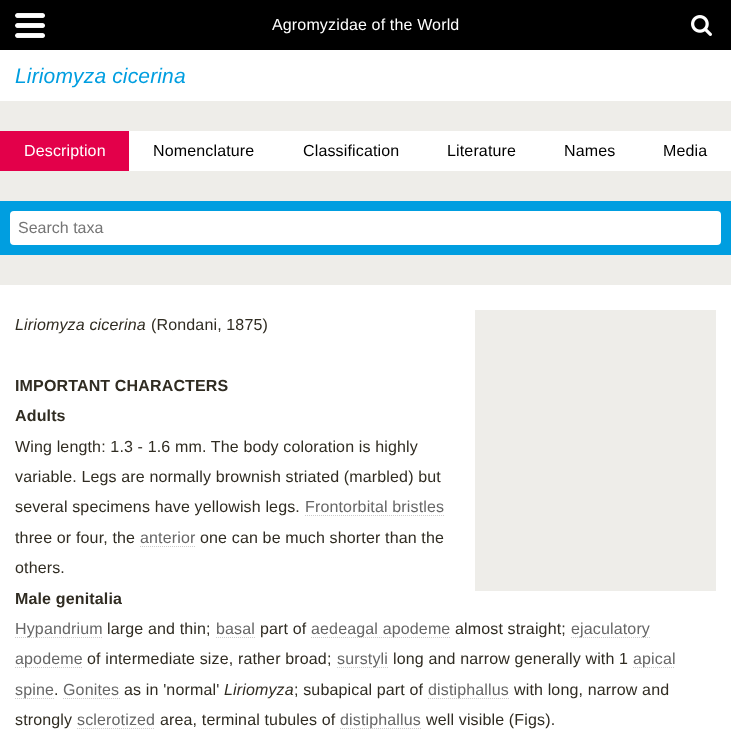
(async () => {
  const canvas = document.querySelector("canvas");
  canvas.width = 731;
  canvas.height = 735;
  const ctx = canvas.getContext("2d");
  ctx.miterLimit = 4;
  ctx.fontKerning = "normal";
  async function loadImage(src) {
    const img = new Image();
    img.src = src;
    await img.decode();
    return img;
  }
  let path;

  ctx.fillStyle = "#eeede9";
  ctx.fillRect(0, 0, 731, 735);
  ctx.fillStyle = "#000000";
  ctx.fillRect(0, 0, 731, 50);
  ctx.drawImage(await loadImage("img/1.png"), 15, 13, 30, 25);
  ctx.drawImage(await loadImage("img/2.png"), 691, 15, 21, 21);
  for (const [x, y, w, h, color] of [
    [0, 50, 731, 51, "#ffffff"],
    [129, 131, 602, 40, "#ffffff"],
    [0, 131, 129, 40, "#e3004a"],
    [0, 201, 731, 54, "#009ee0"],
  ]) {
    ctx.fillStyle = color;
    ctx.fillRect(x, y, w, h);
  }
  ctx.fillStyle = "#ffffff";
  ctx.beginPath();
  ctx.roundRect(10, 211, 711, 34, 4);
  ctx.fill();
  ctx.fillRect(0, 285, 731, 450);
  ctx.fillStyle = "#eeede9";
  ctx.fillRect(475, 310, 241, 281);
  path = new Path2D("M305 515.5H444");
  ctx.strokeStyle = "#cccccc";
  ctx.setLineDash([1, 1]);
  ctx.stroke(path);
  path = new Path2D("M140 546.5H195");
  ctx.stroke(path);
  path = new Path2D("M15 637.5H103");
  ctx.stroke(path);
  path = new Path2D("M216 637.5H255");
  ctx.stroke(path);
  path = new Path2D("M311 637.5H450");
  ctx.stroke(path);
  path = new Path2D("M571 637.5H650");
  ctx.stroke(path);
  path = new Path2D("M15 667.5H83");
  ctx.stroke(path);
  path = new Path2D("M337 667.5H388");
  ctx.stroke(path);
  path = new Path2D("M633 667.5H675");
  ctx.stroke(path);
  path = new Path2D("M15 698.5H54");
  ctx.stroke(path);
  path = new Path2D("M63 698.5H120");
  ctx.stroke(path);
  path = new Path2D("M428 698.5H509");
  ctx.stroke(path);
  path = new Path2D("M77 728.5H155");
  ctx.stroke(path);
  path = new Path2D("M340 728.5H421");
  ctx.stroke(path);
  ctx.letterSpacing = "0.15px";
  ctx.font = "16px Liberation Sans";
  ctx.fillStyle = "#ffffff";
  ctx.fillText("Agromyzidae of the World", 272, 30);
  ctx.font = "italic 21px Liberation Sans";
  ctx.fillStyle = "#009ee0";
  ctx.fillText("Liriomyza cicerina", 15, 83);
  ctx.font = "16px Liberation Sans";
  ctx.fillStyle = "#ffffff";
  ctx.fillText("Description", 24, 156);
  ctx.fillStyle = "#000000";
  for (const [text, x, y] of [
    ["Nomenclature", 153, 156],
    ["Classification", 303, 156],
    ["Literature", 447, 156],
    ["Names", 564, 156],
    ["Media", 663, 156],
  ]) {
    ctx.fillText(text, x, y);
  }
  ctx.letterSpacing = "0px";
  ctx.fillStyle = "#757575";
  ctx.fillText("Search taxa", 18, 233);
  ctx.letterSpacing = "0.15px";
  ctx.font = "italic 16px Liberation Sans";
  ctx.fillStyle = "#302c22";
  ctx.fillText("Liriomyza cicerina", 15, 330);
  ctx.font = "16px Liberation Sans";
  ctx.fillText("(Rondani, 1875)", 151, 330);
  ctx.font = "bold 16px Liberation Sans";
  ctx.fillText("IMPORTANT CHARACTERS", 15, 391);
  ctx.fillText("Adults", 15, 421);
  ctx.font = "16px Liberation Sans";
  for (const [text, x, y] of [
    ["Wing length: 1.3 - 1.6 mm. The body coloration is highly", 15, 452],
    ["variable. Legs are normally brownish striated (marbled) but", 15, 482],
    ["several specimens have yellowish legs.", 15, 512],
  ]) {
    ctx.fillText(text, x, y);
  }
  ctx.fillStyle = "#666666";
  ctx.fillText("Frontorbital bristles", 305, 512);
  ctx.fillStyle = "#302c22";
  ctx.fillText("three or four, the", 15, 543);
  ctx.fillStyle = "#666666";
  ctx.fillText("anterior", 140, 543);
  ctx.fillStyle = "#302c22";
  ctx.fillText("one can be much shorter than the", 200, 543);
  ctx.fillText("others.", 15, 573);
  ctx.font = "bold 16px Liberation Sans";
  ctx.fillText("Male genitalia", 15, 604);
  ctx.font = "16px Liberation Sans";
  ctx.fillStyle = "#666666";
  ctx.fillText("Hypandrium", 15, 634);
  ctx.fillStyle = "#302c22";
  ctx.fillText("large and thin;", 107, 634);
  ctx.fillStyle = "#666666";
  ctx.fillText("basal", 216, 634);
  ctx.fillStyle = "#302c22";
  ctx.fillText("part of", 260, 634);
  ctx.fillStyle = "#666666";
  ctx.fillText("aedeagal apodeme", 311, 634);
  ctx.fillStyle = "#302c22";
  ctx.fillText("almost straight;", 455, 634);
  ctx.fillStyle = "#666666";
  ctx.fillText("ejaculatory", 571, 634);
  ctx.fillText("apodeme", 15, 664);
  ctx.fillStyle = "#302c22";
  ctx.fillText("of intermediate size, rather broad;", 87, 664);
  ctx.fillStyle = "#666666";
  ctx.fillText("surstyli", 337, 664);
  ctx.fillStyle = "#302c22";
  ctx.fillText("long and narrow generally with 1", 393, 664);
  ctx.fillStyle = "#666666";
  ctx.fillText("apical", 633, 664);
  ctx.fillText("spine", 15, 695);
  ctx.fillStyle = "#302c22";
  ctx.fillText(".", 54, 695);
  ctx.fillStyle = "#666666";
  ctx.fillText("Gonites", 63, 695);
  ctx.fillStyle = "#302c22";
  ctx.fillText("as in 'normal'", 124, 695);
  ctx.font = "italic 16px Liberation Sans";
  ctx.fillText("Liriomyza", 224, 695);
  ctx.font = "16px Liberation Sans";
  ctx.fillText("; subapical part of", 294, 695);
  ctx.fillStyle = "#666666";
  ctx.fillText("distiphallus", 428, 695);
  ctx.fillStyle = "#302c22";
  ctx.fillText("with long, narrow and", 514, 695);
  ctx.fillText("strongly", 15, 725);
  ctx.fillStyle = "#666666";
  ctx.fillText("sclerotized", 77, 725);
  ctx.fillStyle = "#302c22";
  ctx.fillText("area, terminal tubules of", 160, 725);
  ctx.fillStyle = "#666666";
  ctx.fillText("distiphallus", 340, 725);
  ctx.fillStyle = "#302c22";
  ctx.fillText("well visible (Figs).", 426, 725);
})();
